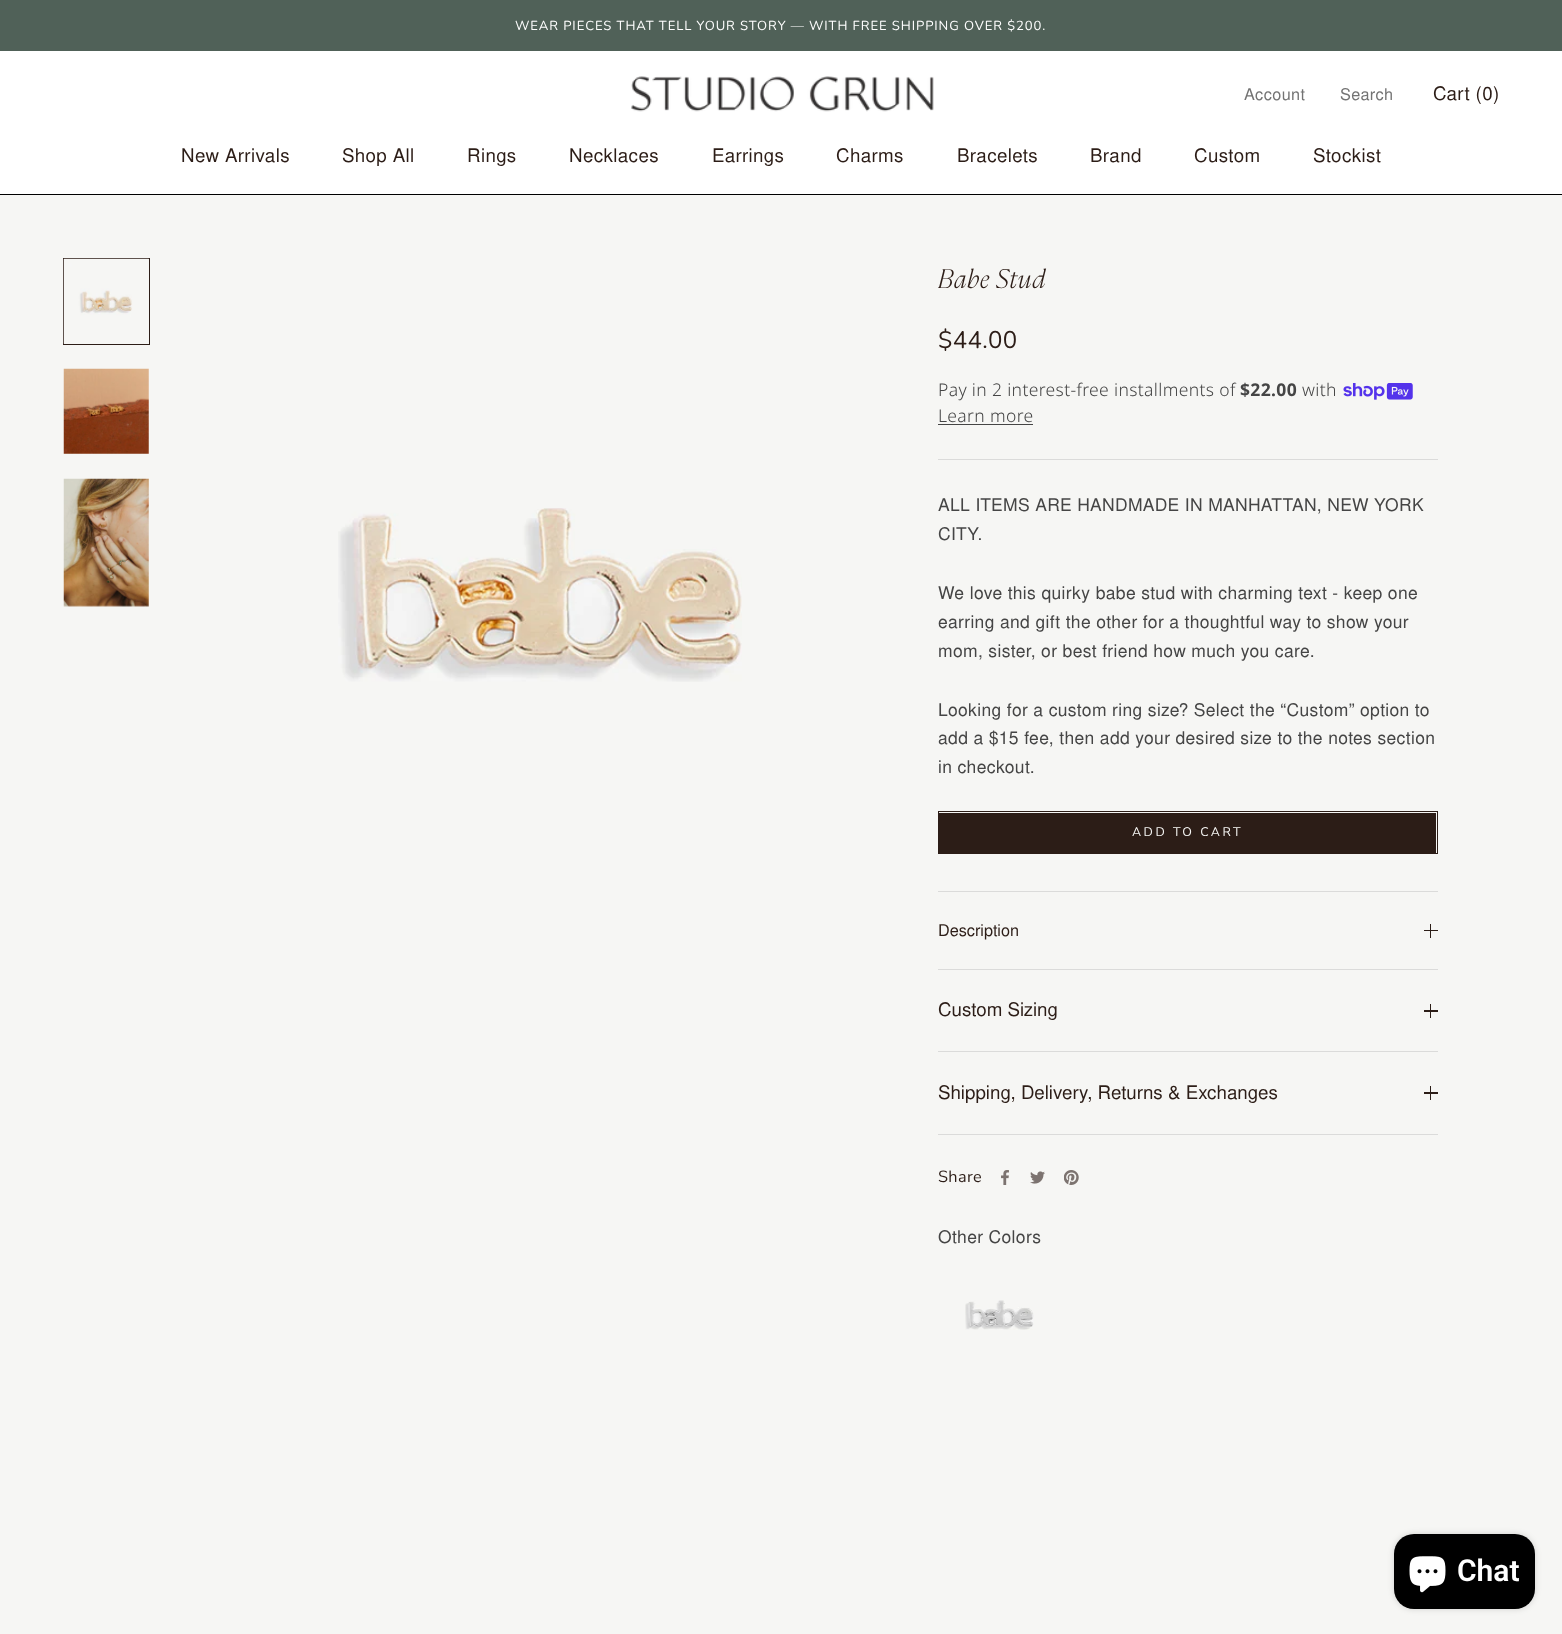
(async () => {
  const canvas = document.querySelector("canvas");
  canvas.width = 1562;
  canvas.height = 1634;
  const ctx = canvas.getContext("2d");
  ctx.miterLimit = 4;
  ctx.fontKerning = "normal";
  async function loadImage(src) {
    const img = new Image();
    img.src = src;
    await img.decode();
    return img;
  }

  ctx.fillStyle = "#f6f6f4";
  ctx.fillRect(0, 0, 1562, 1634);
  ctx.fillStyle = "#506158";
  ctx.fillRect(0, 0, 1562, 51);
  ctx.fillStyle = "#ffffff";
  ctx.fillRect(0, 51, 1562, 143);
  ctx.drawImage(await loadImage("img/1.png"), 631, 76, 303, 36);
  ctx.fillStyle = "#000000";
  ctx.fillRect(0, 194, 1562, 1);
  ctx.strokeStyle = "#2c1d17";
  ctx.strokeRect(63.5, 258.5, 86, 86);
  ctx.drawImage(await loadImage("img/2.png"), 63, 258, 86, 86);
  ctx.drawImage(await loadImage("img/3.png"), 63, 368, 86, 86);
  ctx.drawImage(await loadImage("img/4.png"), 63, 478, 86, 129);
  ctx.drawImage(await loadImage("img/5.png"), 338, 508, 404, 174);
  ctx.fillStyle = "#dbdbda";
  ctx.fillRect(938, 459, 500, 1);
  ctx.drawImage(await loadImage("img/6.png"), 1343, 383, 70, 17);
  ctx.fillStyle = "#454545";
  ctx.fillRect(938, 424, 95, 1);
  ctx.strokeRect(938.5, 811.5, 499, 42);
  for (const [x, y, w, h, color] of [
    [939, 813, 497, 40, "#2c1d17"],
    [938, 891, 500, 1, "#dbdbda"],
    [938, 969, 500, 1, "#dbdbda"],
    [1430, 924, 1, 14, "#2c1d17"],
    [1424, 930, 14, 1, "#2c1d17"],
    [938, 1051, 500, 1, "#dbdbda"],
    [1430, 1004, 1, 14, "#2c1d17"],
    [1424, 1010, 14, 2, "#2c1d17"],
    [938, 1134, 500, 1, "#dbdbda"],
    [1430, 1086, 1, 14, "#2c1d17"],
    [1424, 1092, 14, 2, "#2c1d17"],
  ]) {
    ctx.fillStyle = color;
    ctx.fillRect(x, y, w, h);
  }
  ctx.drawImage(await loadImage("img/7.png"), 1001, 1170, 8, 15);
  ctx.drawImage(await loadImage("img/8.png"), 1030, 1171, 15, 13);
  ctx.drawImage(await loadImage("img/9.png"), 1064, 1170, 15, 15);
  ctx.drawImage(await loadImage("img/10.png"), 965, 1300, 69, 30);
  ctx.fillStyle = "rgba(0, 0, 0, 0.15)";
  ctx.filter = "blur(3px)";
  ctx.beginPath();
  ctx.roundRect(1394, 1534, 141, 75, 20);
  ctx.fill();
  ctx.filter = "none";
  ctx.fillStyle = "#000000";
  ctx.beginPath();
  ctx.roundRect(1394, 1534, 141, 75, 20);
  ctx.fill();
  ctx.drawImage(await loadImage("img/11.png"), 1409, 1556, 37, 37);
  ctx.letterSpacing = "0.92px";
  ctx.font = "13.1px Nunito";
  ctx.fillStyle = "#ffffff";
  ctx.fillText("WEAR PIECES THAT TELL YOUR STORY — WITH FREE SHIPPING OVER $200.", 515, 30);
  ctx.letterSpacing = "0.35px";
  ctx.font = "16.25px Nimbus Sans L";
  ctx.fillStyle = "#737373";
  ctx.fillText("Account", 1244, 100);
  ctx.fillText("Search", 1340, 100);
  ctx.font = "18.75px Nimbus Sans L";
  ctx.fillStyle = "#2c1d17";
  for (const [text, x, y] of [
    ["Cart (0)", 1433, 100],
    ["New Arrivals", 181, 162],
    ["Shop All", 342, 162],
    ["Rings", 467, 162],
    ["Necklaces", 569, 162],
    ["Earrings", 712, 162],
    ["Charms", 836, 162],
    ["Bracelets", 957, 162],
    ["Brand", 1090, 162],
    ["Custom", 1194, 162],
    ["Stockist", 1313, 162],
  ]) {
    ctx.fillText(text, x, y);
  }
  ctx.font = "italic 300 27.5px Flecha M";
  ctx.fillText("Babe Stud", 938, 288);
  ctx.font = "24px Nunito";
  ctx.fillText("$44.00", 938, 348);
  ctx.font = "300 17.5px Noto Sans";
  ctx.fillStyle = "#454545";
  ctx.fillText("Pay in 2 interest-free installments of", 938, 396);
  ctx.font = "bold 17.5px Noto Sans";
  ctx.fillText("$22.00", 1240, 396);
  ctx.font = "300 17.5px Noto Sans";
  ctx.fillText("with", 1302, 396);
  ctx.fillText("Learn more", 938, 422);
  ctx.font = "17.5px Nimbus Sans L";
  for (const [text, x, y] of [
    ["ALL ITEMS ARE HANDMADE IN MANHATTAN, NEW YORK", 938, 511],
    ["CITY.", 938, 540],
    ["We love this quirky babe stud with charming text - keep one", 938, 599],
    ["earring and gift the other for a thoughtful way to show your", 938, 628],
    ["mom, sister, or best friend how much you care.", 938, 657],
    ["Looking for a custom ring size? Select the “Custom” option to", 938, 716],
    ["add a $15 fee, then add your desired size to the notes section", 938, 744],
    ["in checkout.", 938, 773],
  ]) {
    ctx.fillText(text, x, y);
  }
  ctx.letterSpacing = "2.5px";
  ctx.font = "12.5px Nunito";
  ctx.fillStyle = "#f6f6f4";
  ctx.fillText("ADD TO CART", 1132, 836);
  ctx.letterSpacing = "0px";
  ctx.font = "16.25px Nimbus Sans L";
  ctx.fillStyle = "#2c1d17";
  ctx.fillText("Description", 938, 936);
  ctx.font = "18.75px Nimbus Sans L";
  ctx.fillText("Custom Sizing", 938, 1016);
  ctx.fillText("Shipping, Delivery, Returns & Exchanges", 938, 1099);
  ctx.letterSpacing = "0.35px";
  ctx.font = "16.25px Nunito";
  ctx.fillText("Share", 938, 1182);
  ctx.font = "17.5px Nimbus Sans L";
  ctx.fillStyle = "#454545";
  ctx.fillText("Other Colors", 938, 1243);
  ctx.letterSpacing = "0px";
  ctx.font = "600 30px Roboto";
  ctx.fillStyle = "#ffffff";
  ctx.fillText("Chat", 1457, 1581);
})();
